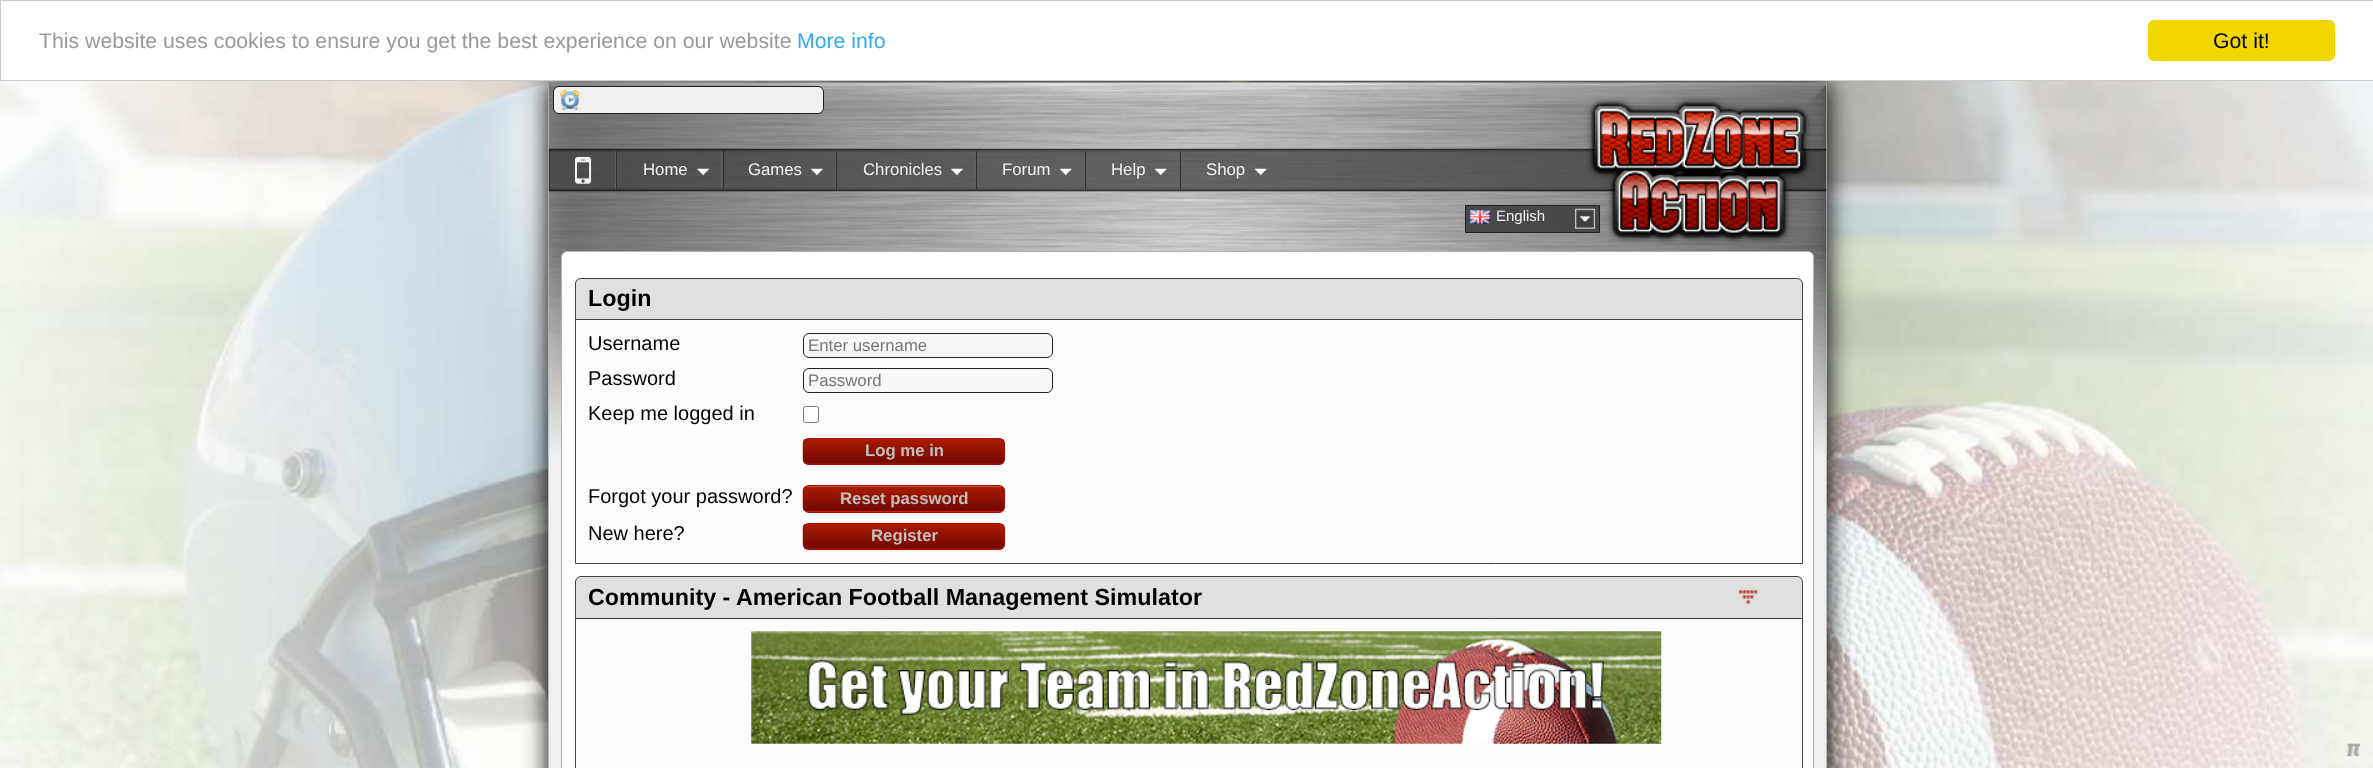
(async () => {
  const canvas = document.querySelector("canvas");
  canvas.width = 2373;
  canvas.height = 768;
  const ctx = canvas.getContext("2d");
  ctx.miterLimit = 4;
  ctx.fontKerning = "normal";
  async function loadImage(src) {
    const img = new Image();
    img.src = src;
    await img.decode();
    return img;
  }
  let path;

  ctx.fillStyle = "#ffffff";
  ctx.fillRect(0, 0, 2373, 768);
  ctx.drawImage(await loadImage("img/1.png"), 0, 81, 2373, 687);
  ctx.fillStyle = "#000000";
  ctx.filter = "blur(12.5px)";
  ctx.beginPath();
  ctx.rect(548, 83, 1280, 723);
  ctx.fill();
  ctx.filter = "none";
  ctx.fillStyle = "#ffffff";
  ctx.fillRect(524, 54, 1328, 26);
  ctx.strokeStyle = "#cccccc";
  ctx.strokeRect(0.5, 0.5, 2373, 80);
  ctx.fillStyle = "#f1d600";
  ctx.beginPath();
  ctx.roundRect(2148, 20, 187, 41, 6);
  ctx.fill();
  ctx.fillStyle = "#b9b9b9";
  ctx.fillRect(1826, 83, 1, 685);
  ctx.fillRect(548, 83, 1, 685);
  ctx.drawImage(await loadImage("img/2.png"), 548, 82, 1279, 163);
  ctx.fillStyle = "#f0f0f0";
  ctx.beginPath();
  ctx.roundRect(553.5, 86.5, 270, 27, 5.5);
  ctx.fill();
  ctx.strokeStyle = "#202020";
  ctx.stroke();
  ctx.drawImage(await loadImage("img/3.png"), 560, 90, 20, 20);
  ctx.fillStyle = "#606060";
  ctx.fillRect(615, 151, 1, 38);
  ctx.fillStyle = "#303030";
  ctx.fillRect(549, 151, 1, 38);
  ctx.drawImage(await loadImage("img/4.png"), 575, 156, 17, 28);
  ctx.fillStyle = "#606060";
  ctx.fillRect(721, 151, 1, 38);
  ctx.fillStyle = "#303030";
  ctx.fillRect(616, 151, 1, 38);
  ctx.drawImage(await loadImage("img/5.png"), 697, 168, 12, 8);
  ctx.fillStyle = "#606060";
  ctx.fillRect(835, 151, 1, 38);
  ctx.fillStyle = "#303030";
  ctx.fillRect(723, 151, 1, 38);
  ctx.drawImage(await loadImage("img/6.png"), 811, 168, 12, 8);
  ctx.fillStyle = "#606060";
  ctx.fillRect(975, 151, 1, 38);
  ctx.fillStyle = "#303030";
  ctx.fillRect(836, 151, 1, 38);
  ctx.drawImage(await loadImage("img/7.png"), 951, 168, 12, 8);
  ctx.fillStyle = "#606060";
  ctx.fillRect(1084, 151, 1, 38);
  ctx.fillStyle = "#303030";
  ctx.fillRect(976, 151, 1, 38);
  ctx.drawImage(await loadImage("img/8.png"), 1059, 168, 13, 8);
  ctx.fillStyle = "#606060";
  ctx.fillRect(1179, 151, 1, 38);
  ctx.fillStyle = "#303030";
  ctx.fillRect(1085, 151, 1, 38);
  ctx.drawImage(await loadImage("img/9.png"), 1154, 168, 13, 8);
  ctx.fillStyle = "#606060";
  ctx.fillRect(1279, 151, 1, 38);
  ctx.fillStyle = "#303030";
  ctx.fillRect(1180, 151, 1, 38);
  ctx.drawImage(await loadImage("img/10.png"), 1254, 168, 13, 8);
  ctx.fillStyle = "rgba(63, 63, 63, 0.9)";
  ctx.beginPath();
  ctx.rect(1465.5, 205.5, 134, 27);
  ctx.fill();
  ctx.stroke();
  ctx.drawImage(await loadImage("img/11.png"), 1470, 210, 20, 14);
  ctx.drawImage(await loadImage("img/12.png"), 1575, 208, 20, 21);
  ctx.fillStyle = "#f0f0f0";
  ctx.fillRect(549, 457, 1277, 311);
  ctx.drawImage(await loadImage("img/13.png"), 548, 245, 1279, 213);
  ctx.fillStyle = "#ffffff";
  path = new Path2D("M567 251.5H1808C1811 251.5 1813.5 254 1813.5 257V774.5H561.5V257C561.5 254 564 251.5 567 251.5Z");
  ctx.fill(path);
  ctx.strokeStyle = "#b0b0b0";
  ctx.stroke(path);
  ctx.fillStyle = "#fcfcfc";
  ctx.beginPath();
  ctx.rect(575.5, 319.5, 1227, 244);
  ctx.fill();
  ctx.strokeStyle = "#404040";
  ctx.stroke();
  ctx.fillStyle = "#e0e0e0";
  ctx.beginPath();
  ctx.roundRect(575.5, 278.5, 1227, 41, [5.5, 5.5, 0, 0]);
  ctx.fill();
  ctx.stroke();
  ctx.fillStyle = "#f8f8f8";
  ctx.beginPath();
  ctx.roundRect(803.5, 333.5, 249, 24, 5.5);
  ctx.fill();
  ctx.strokeStyle = "#202020";
  ctx.stroke();
  ctx.beginPath();
  ctx.roundRect(803.5, 368.5, 249, 24, 5.5);
  ctx.fill();
  ctx.stroke();
  ctx.fillStyle = "#ffffff";
  ctx.beginPath();
  ctx.roundRect(803.5, 406.5, 15, 16, 2);
  ctx.fill();
  ctx.strokeStyle = "#767676";
  ctx.stroke();
  ctx.drawImage(await loadImage("img/14.png"), 802, 438, 203, 27);
  ctx.beginPath();
  ctx.roundRect(803.5, 438.5, 201, 26, 5.5);
  ctx.strokeStyle = "#aa0a00";
  ctx.stroke();
  ctx.drawImage(await loadImage("img/15.png"), 802, 486, 203, 27);
  ctx.beginPath();
  ctx.roundRect(803.5, 485.5, 201, 27, 5.5);
  ctx.stroke();
  ctx.drawImage(await loadImage("img/14.png"), 802, 523, 203, 27);
  ctx.beginPath();
  ctx.roundRect(803.5, 523.5, 201, 26, 5.5);
  ctx.stroke();
  ctx.fillStyle = "#fcfcfc";
  ctx.beginPath();
  ctx.rect(575.5, 618.5, 1227, 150);
  ctx.fill();
  ctx.strokeStyle = "#404040";
  ctx.stroke();
  ctx.fillStyle = "#e0e0e0";
  ctx.beginPath();
  ctx.roundRect(575.5, 576.5, 1227, 42, [5.5, 5.5, 0, 0]);
  ctx.fill();
  ctx.stroke();
  ctx.drawImage(await loadImage("img/16.png"), 1738, 590, 20, 14);
  ctx.drawImage(await loadImage("img/17.png"), 751, 631, 911, 113);
  ctx.drawImage(await loadImage("img/18.png"), 2347, 743, 14, 14);
  ctx.font = "21.25px Liberation Sans";
  ctx.fillStyle = "#999999";
  ctx.fillText("This website uses cookies to ensure you get the best experience on our website", 39, 48);
  ctx.fillStyle = "#31a8f0";
  ctx.fillText("More info", 797, 48);
  ctx.fillStyle = "#000000";
  ctx.fillText("Got it!", 2213, 48);
  ctx.font = "16.75px Liberation Sans";
  ctx.fillStyle = "#f0f0f0";
  for (const [text, x, y] of [
    ["Home", 643, 175],
    ["Games", 748, 175],
    ["Chronicles", 863, 175],
    ["Forum", 1002, 175],
    ["Help", 1111, 175],
    ["Shop", 1206, 175],
  ]) {
    ctx.fillText(text, x, y);
  }
  ctx.font = "15px Liberation Sans";
  ctx.fillText("English", 1496, 221);
  ctx.font = "bold 23.3px Liberation Sans";
  ctx.fillStyle = "#000000";
  ctx.fillText("Login", 588, 306);
  ctx.font = "20px Liberation Sans";
  ctx.fillText("Username", 588, 350);
  ctx.font = "16.75px Liberation Sans";
  ctx.fillStyle = "#757575";
  ctx.fillText("Enter username", 808, 351);
  ctx.font = "20px Liberation Sans";
  ctx.fillStyle = "#000000";
  ctx.fillText("Password", 588, 385);
  ctx.font = "16.75px Liberation Sans";
  ctx.fillStyle = "#757575";
  ctx.fillText("Password", 808, 386);
  ctx.font = "20px Liberation Sans";
  ctx.fillStyle = "#000000";
  ctx.fillText("Keep me logged in", 588, 420);
  ctx.font = "bold 16.75px Liberation Sans";
  ctx.fillStyle = "#c0c0c0";
  ctx.fillText("Log me in", 865, 456);
  ctx.font = "20px Liberation Sans";
  ctx.fillStyle = "#000000";
  ctx.fillText("Forgot your password?", 588, 503);
  ctx.font = "bold 16.75px Liberation Sans";
  ctx.fillStyle = "#c0c0c0";
  ctx.fillText("Reset password", 840, 504);
  ctx.font = "20px Liberation Sans";
  ctx.fillStyle = "#000000";
  ctx.fillText("New here?", 588, 540);
  ctx.font = "bold 16.75px Liberation Sans";
  ctx.fillStyle = "#c0c0c0";
  ctx.fillText("Register", 871, 541);
  ctx.font = "bold 23.3px Liberation Sans";
  ctx.fillStyle = "#000000";
  ctx.fillText("Community - American Football Management Simulator", 588, 605);
})();
